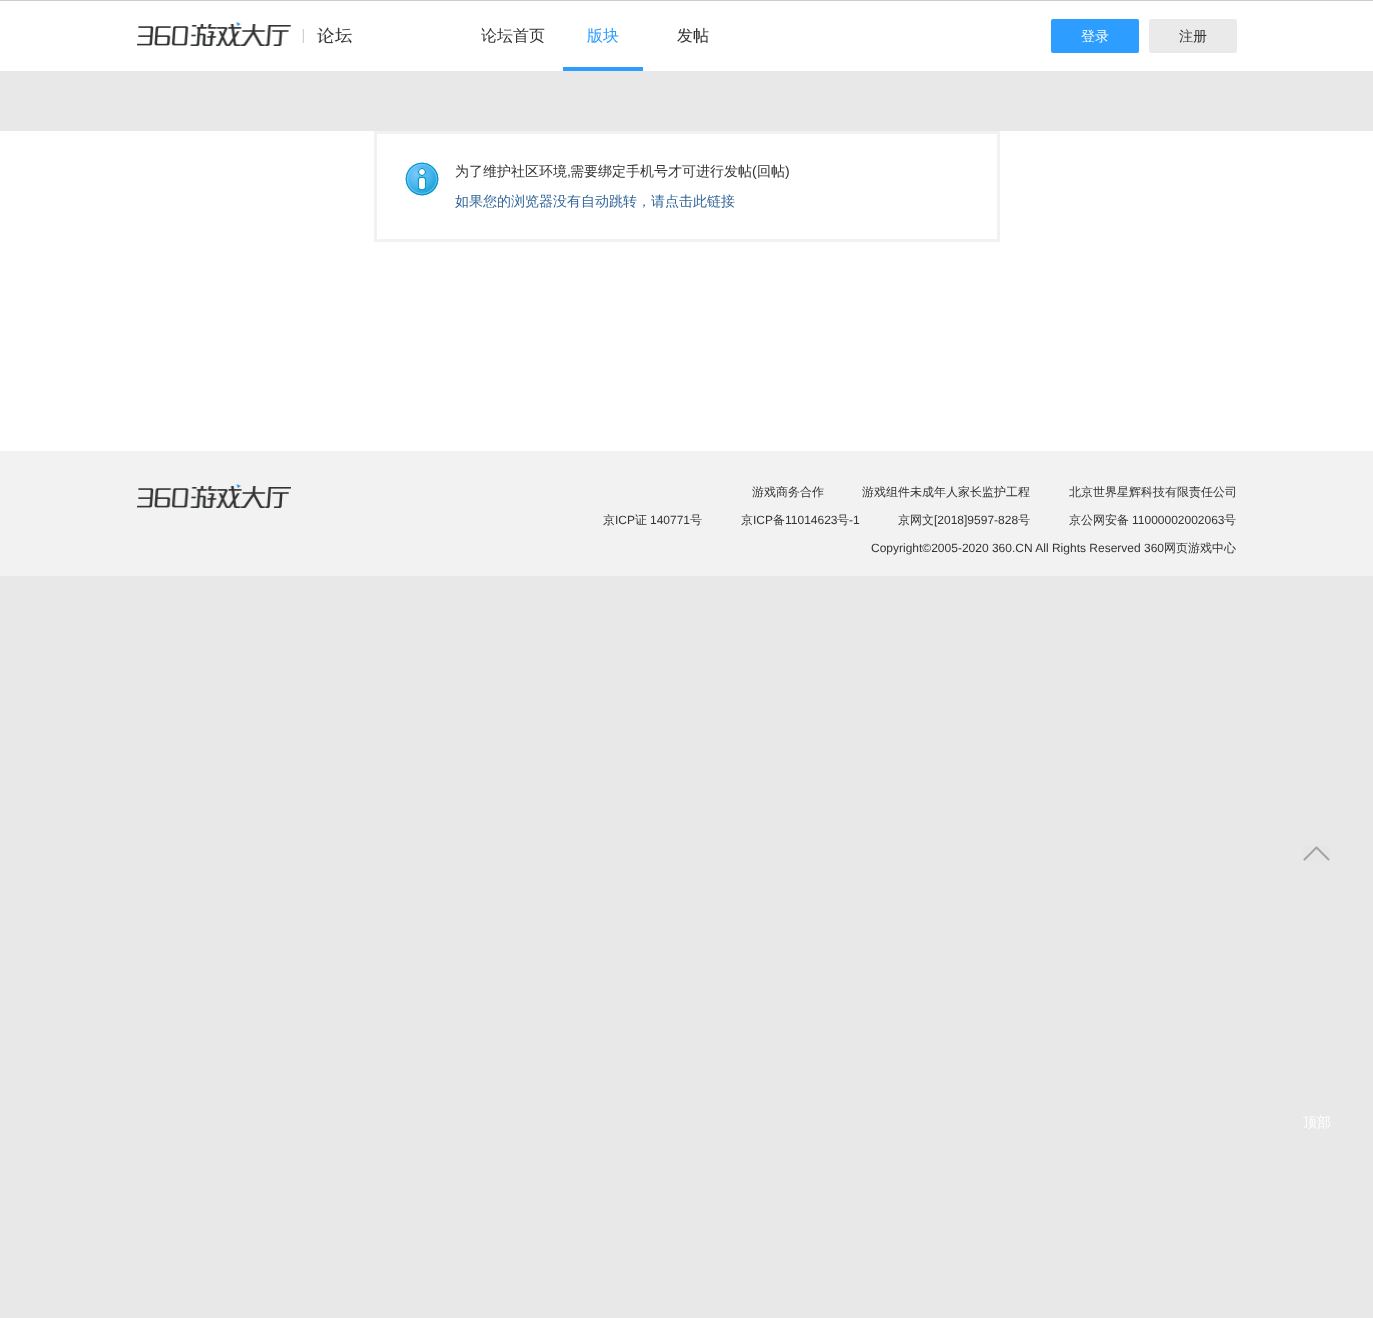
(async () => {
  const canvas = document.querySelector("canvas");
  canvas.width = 1373;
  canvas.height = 1318;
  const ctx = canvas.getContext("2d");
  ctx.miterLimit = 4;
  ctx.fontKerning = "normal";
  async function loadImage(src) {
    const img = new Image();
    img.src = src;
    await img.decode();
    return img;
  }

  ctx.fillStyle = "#e8e8e8";
  ctx.fillRect(0, 0, 1373, 1318);
  ctx.fillStyle = "#cdcdcd";
  ctx.fillRect(0, 0, 1373, 1);
  ctx.fillStyle = "#ffffff";
  ctx.fillRect(0, 1, 1373, 70);
  ctx.drawImage(await loadImage("img/1.png"), 137, 22, 215, 24);
  ctx.fillStyle = "#2d9dff";
  ctx.fillRect(563, 67, 80, 4);
  ctx.beginPath();
  ctx.roundRect(1051, 19, 88, 34, 2);
  ctx.fill();
  ctx.fillStyle = "#eaeaea";
  ctx.beginPath();
  ctx.roundRect(1149, 19, 88, 34, 2);
  ctx.fill();
  ctx.fillStyle = "#ffffff";
  ctx.fillRect(0, 131, 1373, 320);
  ctx.strokeStyle = "#f2f2f2";
  ctx.lineWidth = 3;
  ctx.strokeRect(375.5, 132.5, 623, 108);
  ctx.drawImage(await loadImage("img/2.png"), 405, 162, 34, 34);
  ctx.fillStyle = "#f2f2f2";
  ctx.fillRect(0, 451, 1373, 125);
  ctx.drawImage(await loadImage("img/3.png"), 137, 484, 154, 24);
  ctx.drawImage(await loadImage("img/4.png"), 1303, 846, 27, 15);
  ctx.font = "500 16px WenQuanYi Zen Hei";
  ctx.fillStyle = "#333333";
  ctx.fillText("论坛首页", 481, 41);
  ctx.fillStyle = "#2d9dff";
  ctx.fillText("版块", 587, 41);
  ctx.fillStyle = "#333333";
  ctx.fillText("发帖", 677, 41);
  ctx.font = "500 14px WenQuanYi Zen Hei";
  ctx.fillStyle = "#ffffff";
  ctx.fillText("登录", 1081, 41);
  ctx.fillStyle = "#333333";
  ctx.fillText("注册", 1179, 41);
  ctx.fillText("为了维护社区环境", 455, 176);
  ctx.font = "14px Liberation Sans";
  ctx.fillText(",", 567, 176);
  ctx.font = "500 14px WenQuanYi Zen Hei";
  ctx.fillText("需要绑定手机号才可进行发帖", 570, 176);
  ctx.font = "14px Liberation Sans";
  ctx.fillText("(", 752, 176);
  ctx.font = "500 14px WenQuanYi Zen Hei";
  ctx.fillText("回帖", 757, 176);
  ctx.font = "14px Liberation Sans";
  ctx.fillText(")", 785, 176);
  ctx.font = "500 14px WenQuanYi Zen Hei";
  ctx.fillStyle = "#336699";
  ctx.fillText("如果您的浏览器没有自动跳转，请点击此链接", 455, 206);
  ctx.font = "500 12px WenQuanYi Zen Hei";
  ctx.fillStyle = "#333333";
  for (const [text, x, y] of [
    ["游戏商务合作", 752, 496],
    ["游戏组件未成年人家长监护工程", 862, 496],
    ["北京世界星辉科技有限责任公司", 1069, 496],
    ["京", 603, 524],
  ]) {
    ctx.fillText(text, x, y);
  }
  ctx.font = "12px Liberation Sans";
  ctx.fillText("ICP", 615, 524);
  ctx.font = "500 12px WenQuanYi Zen Hei";
  ctx.fillText("证", 635, 524);
  ctx.font = "12px Liberation Sans";
  ctx.fillText("140771", 650, 524);
  ctx.font = "500 12px WenQuanYi Zen Hei";
  ctx.fillText("号", 690, 524);
  ctx.fillText("京", 741, 524);
  ctx.font = "12px Liberation Sans";
  ctx.fillText("ICP", 753, 524);
  ctx.font = "500 12px WenQuanYi Zen Hei";
  ctx.fillText("备", 773, 524);
  ctx.font = "12px Liberation Sans";
  ctx.fillText("11014623", 785, 524);
  ctx.font = "500 12px WenQuanYi Zen Hei";
  ctx.fillText("号", 837, 524);
  ctx.font = "12px Liberation Sans";
  ctx.fillText("-1", 849, 524);
  ctx.font = "500 12px WenQuanYi Zen Hei";
  ctx.fillText("京网文", 898, 524);
  ctx.font = "12px Liberation Sans";
  ctx.fillText("[2018]9597-828", 934, 524);
  ctx.font = "500 12px WenQuanYi Zen Hei";
  ctx.fillText("号", 1018, 524);
  ctx.fillText("京公网安备", 1069, 524);
  ctx.font = "12px Liberation Sans";
  ctx.fillText("11000002002063", 1132, 524);
  ctx.font = "500 12px WenQuanYi Zen Hei";
  ctx.fillText("号", 1224, 524);
  ctx.font = "12px Liberation Sans";
  ctx.fillText("Copyright©2005-2020 360.CN All Rights Reserved 360", 871, 552);
  ctx.font = "500 12px WenQuanYi Zen Hei";
  ctx.fillText("网页游戏中心", 1164, 552);
  ctx.font = "500 14px WenQuanYi Zen Hei";
  ctx.fillStyle = "#ffffff";
  ctx.fillText("顶部", 1303, 1127);
})();
